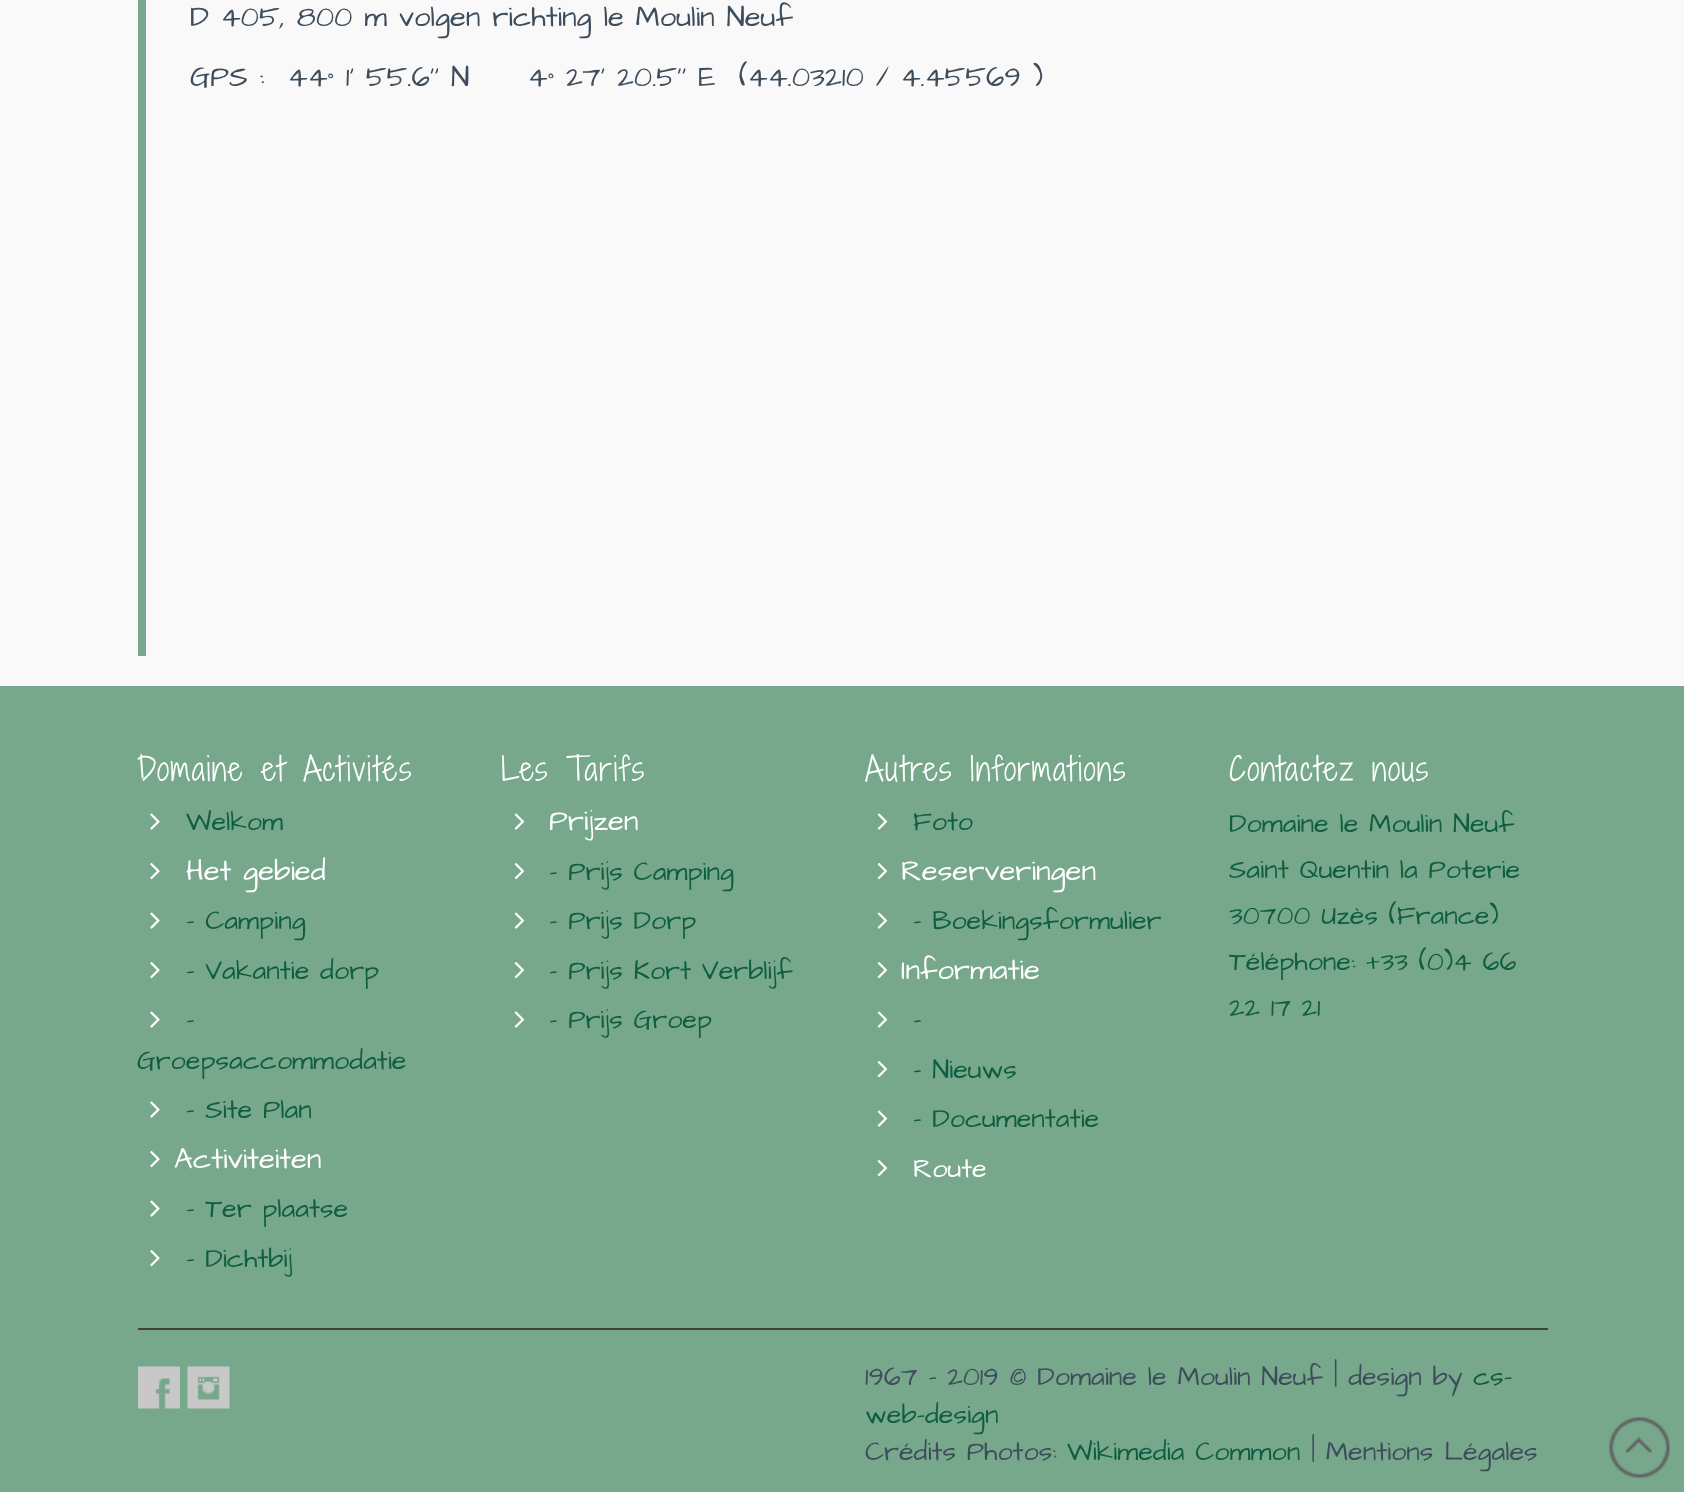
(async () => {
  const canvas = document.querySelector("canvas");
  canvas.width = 1684;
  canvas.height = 1492;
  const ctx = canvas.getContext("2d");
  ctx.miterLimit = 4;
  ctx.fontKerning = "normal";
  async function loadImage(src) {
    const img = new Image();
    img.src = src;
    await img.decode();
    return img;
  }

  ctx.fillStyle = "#f9f9f9";
  ctx.fillRect(0, 0, 1684, 1492);
  ctx.fillStyle = "#77a88c";
  ctx.fillRect(138, 0, 8, 656);
  ctx.fillRect(0, 686, 1684, 806);
  ctx.drawImage(await loadImage("img/1.png"), 150, 813, 10, 17);
  ctx.drawImage(await loadImage("img/2.png"), 150, 863, 10, 17);
  ctx.drawImage(await loadImage("img/1.png"), 150, 912, 10, 17);
  ctx.drawImage(await loadImage("img/2.png"), 150, 962, 10, 17);
  ctx.drawImage(await loadImage("img/1.png"), 150, 1011, 10, 17);
  ctx.drawImage(await loadImage("img/1.png"), 150, 1101, 10, 17);
  ctx.drawImage(await loadImage("img/2.png"), 150, 1151, 10, 17);
  ctx.drawImage(await loadImage("img/1.png"), 150, 1200, 10, 17);
  ctx.drawImage(await loadImage("img/2.png"), 150, 1250, 10, 17);
  ctx.drawImage(await loadImage("img/3.png"), 514, 813, 11, 17);
  ctx.drawImage(await loadImage("img/4.png"), 514, 863, 11, 17);
  ctx.drawImage(await loadImage("img/3.png"), 514, 912, 11, 17);
  ctx.drawImage(await loadImage("img/4.png"), 514, 962, 11, 17);
  ctx.drawImage(await loadImage("img/3.png"), 514, 1011, 11, 17);
  ctx.drawImage(await loadImage("img/3.png"), 877, 813, 11, 17);
  ctx.drawImage(await loadImage("img/4.png"), 877, 863, 11, 17);
  ctx.drawImage(await loadImage("img/3.png"), 877, 912, 11, 17);
  ctx.drawImage(await loadImage("img/4.png"), 877, 962, 11, 17);
  ctx.drawImage(await loadImage("img/3.png"), 877, 1011, 11, 17);
  ctx.drawImage(await loadImage("img/4.png"), 877, 1061, 11, 17);
  ctx.drawImage(await loadImage("img/3.png"), 877, 1110, 11, 17);
  ctx.drawImage(await loadImage("img/4.png"), 877, 1160, 11, 17);
  ctx.fillStyle = "#404040";
  ctx.fillRect(138, 1328, 1410, 2);
  ctx.drawImage(await loadImage("img/5.png"), 138, 1366, 42, 43);
  ctx.drawImage(await loadImage("img/6.png"), 187, 1366, 43, 43);
  ctx.drawImage(await loadImage("img/7.png"), 1609, 1417, 61, 61);
  ctx.font = "29.25px Architects Daughter";
  ctx.fillStyle = "#3e4d5c";
  ctx.fillText("D 405, 800 m volgen richting le Moulin Neuf", 190, 26);
  ctx.fillText("GPS :  44° 1' 55.6'' N     4° 27' 20.5'' E  (44.03210 / 4.45569 )", 190, 86);
  ctx.letterSpacing = "1.5px";
  ctx.font = "300 31.5px Shadows Into Light Two";
  ctx.fillStyle = "#ffffff";
  ctx.fillText("Domaine et Activités", 137, 781);
  ctx.letterSpacing = "0px";
  ctx.font = "27px Architects Daughter";
  ctx.fillStyle = "#105e42";
  ctx.fillText("Welkom", 186, 830);
  ctx.font = "29.25px Architects Daughter";
  ctx.fillStyle = "#ffffff";
  ctx.fillText("Het gebied", 186, 880);
  ctx.font = "27px Architects Daughter";
  ctx.fillStyle = "#105e42";
  for (const [text, x, y] of [
    ["- Camping", 186, 929],
    ["- Vakantie dorp", 186, 979],
    ["-", 186, 1028],
    ["Groepsaccommodatie", 137, 1069],
    ["- Site Plan", 186, 1118],
  ]) {
    ctx.fillText(text, x, y);
  }
  ctx.font = "29.25px Architects Daughter";
  ctx.fillStyle = "#ffffff";
  ctx.fillText("Activiteiten", 174, 1168);
  ctx.font = "27px Architects Daughter";
  ctx.fillStyle = "#105e42";
  ctx.fillText("- Ter plaatse", 186, 1217);
  ctx.fillText("- Dichtbij", 186, 1267);
  ctx.letterSpacing = "1.5px";
  ctx.font = "300 31.5px Shadows Into Light Two";
  ctx.fillStyle = "#ffffff";
  ctx.fillText("Les Tarifs", 501, 781);
  ctx.letterSpacing = "0px";
  ctx.font = "29.25px Architects Daughter";
  ctx.fillText("Prijzen", 549, 830);
  ctx.font = "27px Architects Daughter";
  ctx.fillStyle = "#105e42";
  for (const [text, x, y] of [
    ["- Prijs Camping", 549, 880],
    ["- Prijs Dorp", 549, 929],
    ["- Prijs Kort Verblijf", 549, 979],
    ["- Prijs Groep", 549, 1028],
  ]) {
    ctx.fillText(text, x, y);
  }
  ctx.letterSpacing = "1.5px";
  ctx.font = "300 31.5px Shadows Into Light Two";
  ctx.fillStyle = "#ffffff";
  ctx.fillText("Autres Informations", 865, 781);
  ctx.letterSpacing = "0px";
  ctx.font = "27px Architects Daughter";
  ctx.fillStyle = "#105e42";
  ctx.fillText("Foto", 913, 830);
  ctx.font = "29.25px Architects Daughter";
  ctx.fillStyle = "#ffffff";
  ctx.fillText("Reserveringen", 901, 880);
  ctx.font = "27px Architects Daughter";
  ctx.fillStyle = "#105e42";
  ctx.fillText("- Boekingsformulier", 913, 929);
  ctx.font = "29.25px Architects Daughter";
  ctx.fillStyle = "#ffffff";
  ctx.fillText("Informatie", 901, 979);
  ctx.font = "27px Architects Daughter";
  ctx.fillStyle = "#105e42";
  for (const [text, x, y] of [
    ["-", 913, 1028],
    ["- Nieuws", 913, 1078],
    ["- Documentatie", 913, 1127],
  ]) {
    ctx.fillText(text, x, y);
  }
  ctx.fillStyle = "#ffffff";
  ctx.fillText("Route", 913, 1177);
  ctx.letterSpacing = "1.5px";
  ctx.font = "300 31.5px Shadows Into Light Two";
  ctx.fillText("Contactez nous", 1229, 781);
  ctx.letterSpacing = "0px";
  ctx.font = "27px Architects Daughter";
  ctx.fillStyle = "#105e42";
  for (const [text, x, y] of [
    ["Domaine le Moulin Neuf", 1229, 832],
    ["Saint Quentin la Poterie", 1229, 878],
    ["30700 Uzès (France)", 1229, 924],
    ["Téléphone: +33 (0)4 66", 1229, 970],
    ["22 17 21", 1229, 1016],
  ]) {
    ctx.fillText(text, x, y);
  }
  ctx.fillStyle = "#3e4d5c";
  ctx.fillText("1967 - 2019 © Domaine le Moulin Neuf | design by", 865, 1385);
  ctx.fillStyle = "#105e42";
  ctx.fillText("cs-", 1473, 1385);
  ctx.fillText("web-design", 865, 1423);
  ctx.fillStyle = "#3e4d5c";
  ctx.fillText("Crédits Photos:", 865, 1460);
  ctx.fillStyle = "#105e42";
  ctx.fillText("Wikimedia Common", 1067, 1460);
  ctx.fillStyle = "#3e4d5c";
  ctx.fillText("| Mentions Légales", 1311, 1460);
})();
